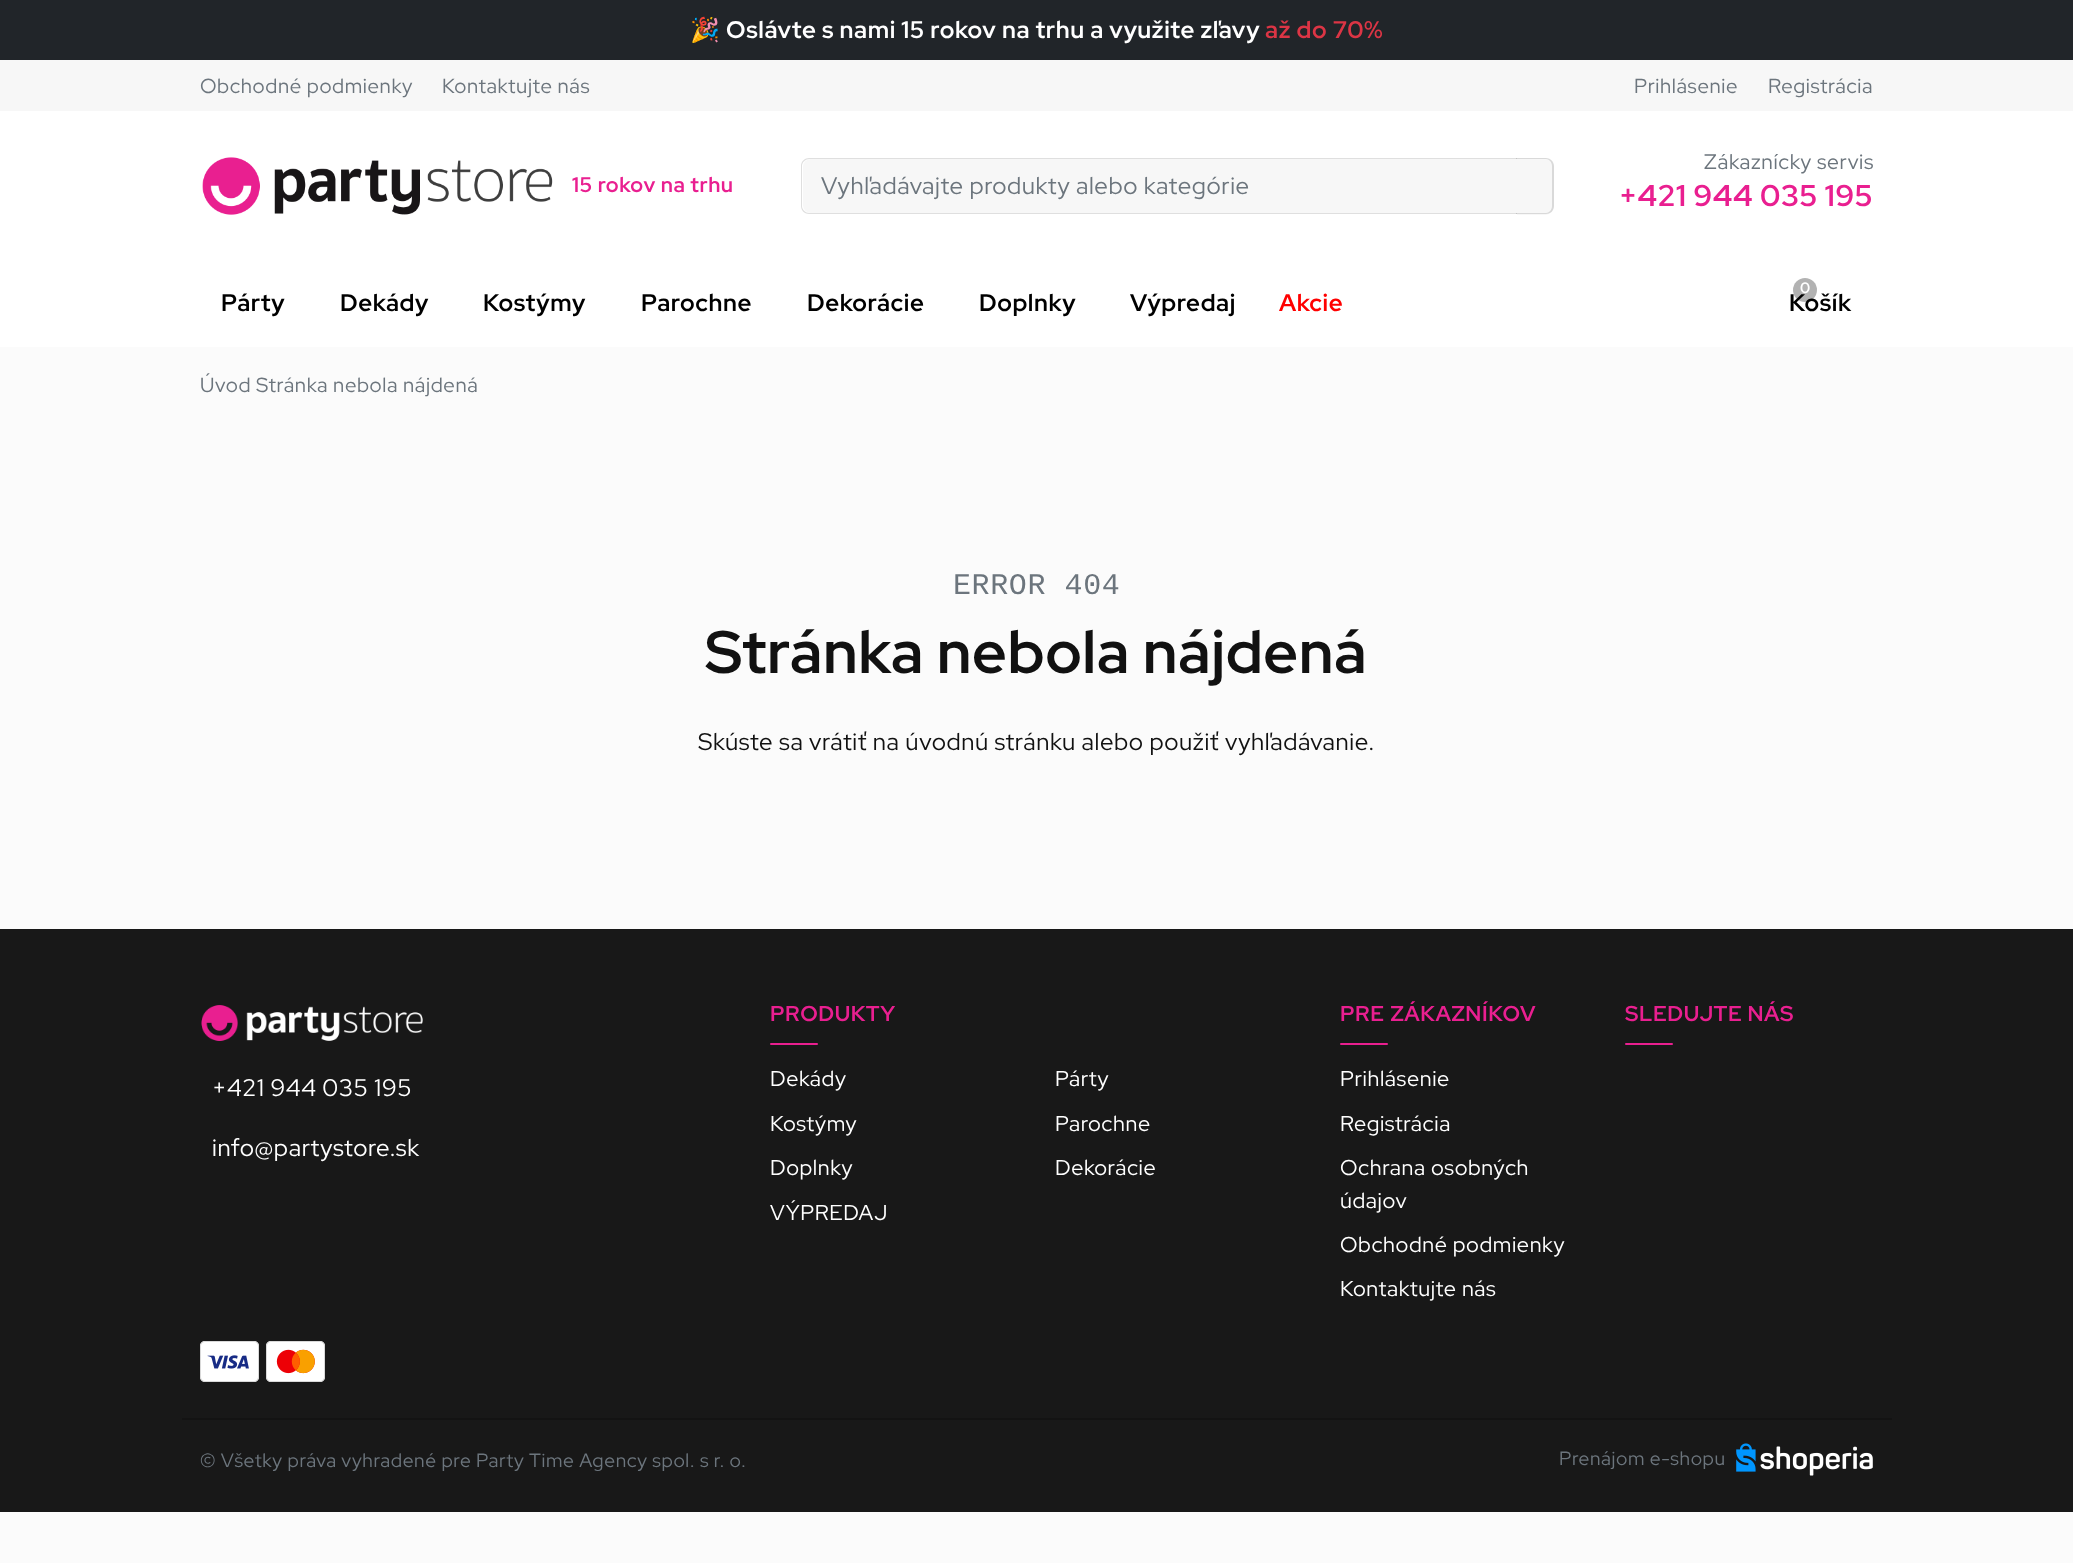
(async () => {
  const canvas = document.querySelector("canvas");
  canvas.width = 2073;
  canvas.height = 1563;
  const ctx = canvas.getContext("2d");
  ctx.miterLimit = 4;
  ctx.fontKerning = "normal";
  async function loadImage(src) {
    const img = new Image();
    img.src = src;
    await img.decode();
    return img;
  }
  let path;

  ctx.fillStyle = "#fbfbfb";
  ctx.fillRect(0, 0, 2073, 1563);
  for (const [x, y, w, h, color] of [
    [0, 0, 2073, 60, "#212529"],
    [0, 111, 2073, 236, "#ffffff"],
    [0, 60, 2073, 51, "#f7f7f7"],
  ]) {
    ctx.fillStyle = color;
    ctx.fillRect(x, y, w, h);
  }
  ctx.drawImage(await loadImage("img/1.png"), 202, 157, 351, 58);
  ctx.beginPath();
  ctx.roundRect(803, 159, 717, 54, [8, 0, 0, 8]);
  ctx.fill();
  ctx.fillStyle = "#dfdfdf";
  path = new Path2D("M809 158H1520V214H809C805 214 801 211 801 206V166C801 161 805 158 809 158ZM809 159H1520V213H809C806 213 802 210 802 206V166C802 162 806 159 809 159Z");
  ctx.fill(path, "evenodd");
  ctx.fillStyle = "#f7f7f7";
  ctx.beginPath();
  ctx.roundRect(1517, 158, 37, 57, [0, 9, 9, 0]);
  ctx.fill();
  ctx.fillStyle = "rgba(0, 0, 0, 0.12)";
  path = new Path2D("M1516 158H1546C1550 158 1554 161 1554 166V206C1554 211 1550 214 1546 214H1516ZM1516 159H1546C1549 159 1552 162 1552 166V206C1552 210 1549 213 1546 213H1516Z");
  ctx.fill(path, "evenodd");
  ctx.fillStyle = "#181818";
  ctx.fillRect(0, 929, 2073, 583);
  ctx.drawImage(await loadImage("img/2.png"), 201, 1005, 222, 36);
  ctx.fillStyle = "#e91f90";
  ctx.beginPath();
  ctx.roundRect(770, 1043, 48, 2, 1);
  ctx.fill();
  ctx.beginPath();
  ctx.roundRect(1340, 1043, 48, 2, 1);
  ctx.fill();
  ctx.beginPath();
  ctx.roundRect(1625, 1043, 48, 2, 1);
  ctx.fill();
  ctx.drawImage(await loadImage("img/3.png"), 200, 1341, 59, 41);
  ctx.drawImage(await loadImage("img/4.png"), 266, 1341, 59, 41);
  ctx.fillStyle = "#131313";
  ctx.fillRect(182, 1418, 1710, 2);
  ctx.drawImage(await loadImage("img/5.png"), 1736, 1443, 137, 33);
  ctx.letterSpacing = "0.6px";
  ctx.font = "bold 24px Noto Color Emoji";
  ctx.fillStyle = "#ffffff";
  ctx.fillText("🎉", 690, 38);
  ctx.font = "bold 24px Red Hat Display";
  ctx.fillText("Oslávte s nami 15 rokov na trhu a využite zľavy", 726, 38);
  ctx.fillStyle = "#dc3545";
  ctx.fillText("až do 70%", 1265, 38);
  ctx.font = "20.4px Red Hat Display";
  ctx.fillStyle = "#6c757d";
  for (const [text, x, y] of [
    ["Obchodné podmienky", 200, 93],
    ["Kontaktujte nás", 442, 93],
    ["Prihlásenie", 1634, 93],
    ["Registrácia", 1768, 93],
  ]) {
    ctx.fillText(text, x, y);
  }
  ctx.font = "bold 21px Red Hat Display";
  ctx.fillStyle = "#e91f90";
  ctx.fillText("15 rokov na trhu", 572, 192);
  ctx.font = "24px Red Hat Display";
  ctx.fillStyle = "#6c757d";
  ctx.fillText("Vyhľadávajte produkty alebo kategórie", 821, 194);
  ctx.font = "21px Red Hat Display";
  ctx.fillText("Zákaznícky servis", 1704, 169);
  ctx.font = "bold 30px Red Hat Display";
  ctx.fillStyle = "#e91f90";
  ctx.fillText("+421 944 035 195", 1619, 206);
  ctx.font = "bold 24px Red Hat Display";
  ctx.fillStyle = "#000000";
  for (const [text, x, y] of [
    ["Párty", 221, 311],
    ["Dekády", 340, 311],
    ["Kostýmy", 483, 311],
    ["Parochne", 641, 311],
    ["Dekorácie", 807, 311],
    ["Doplnky", 979, 311],
    ["Výpredaj", 1130, 311],
  ]) {
    ctx.fillText(text, x, y);
  }
  ctx.fillStyle = "#ff0000";
  ctx.fillText("Akcie", 1279, 311);
  ctx.fillStyle = "#000000";
  ctx.fillText("Košík", 1789, 311);
  ctx.fillStyle = "rgba(0, 0, 0, 0.3)";
  ctx.beginPath();
  ctx.arc(1805, 290, 12, 0, Math.PI * 2);
  ctx.fill();
  ctx.font = "bold 15px Red Hat Display";
  ctx.fillStyle = "#ffffff";
  ctx.fillText("0", 1800, 293);
  ctx.font = "20.4px Red Hat Display";
  ctx.fillStyle = "#6c757d";
  ctx.fillText("Úvod Stránka nebola nájdená", 200, 392);
  ctx.font = "30px Liberation Mono";
  ctx.fillText("ERROR 404", 953, 594);
  ctx.font = "bold 60px Red Hat Display";
  ctx.fillStyle = "#111111";
  ctx.fillText("Stránka nebola nájdená", 705, 673);
  ctx.font = "24px Red Hat Display";
  ctx.fillText("Skúste sa vrátiť na úvodnú stránku alebo použiť vyhľadávanie.", 698, 750);
  ctx.fillStyle = "#ffffff";
  ctx.fillText("+421 944 035 195", 212, 1096);
  ctx.fillText("info@partystore.sk", 212, 1156);
  ctx.font = "bold 21.6px Red Hat Display";
  ctx.fillStyle = "#e91f90";
  ctx.fillText("PRODUKTY", 770, 1021);
  ctx.font = "21.6px Red Hat Display";
  ctx.fillStyle = "#ffffff";
  for (const [text, x, y] of [
    ["Dekády", 770, 1086],
    ["Párty", 1055, 1086],
    ["Kostýmy", 770, 1131],
    ["Parochne", 1055, 1131],
    ["Doplnky", 770, 1175],
    ["Dekorácie", 1055, 1175],
    ["VÝPREDAJ", 770, 1220],
  ]) {
    ctx.fillText(text, x, y);
  }
  ctx.wordSpacing = "1px";
  ctx.font = "bold 21.6px Red Hat Display";
  ctx.fillStyle = "#e91f90";
  ctx.fillText("PRE ZÁKAZNÍKOV", 1340, 1021);
  ctx.wordSpacing = "0px";
  ctx.font = "21.6px Red Hat Display";
  ctx.fillStyle = "#ffffff";
  for (const [text, x, y] of [
    ["Prihlásenie", 1340, 1086],
    ["Registrácia", 1340, 1131],
    ["Ochrana osobných", 1340, 1175],
    ["údajov", 1340, 1208],
    ["Obchodné podmienky", 1340, 1252],
    ["Kontaktujte nás", 1340, 1296],
  ]) {
    ctx.fillText(text, x, y);
  }
  ctx.font = "bold 21.6px Red Hat Display";
  ctx.fillStyle = "#e91f90";
  ctx.fillText("SLEDUJTE NÁS", 1625, 1021);
  ctx.font = "19.2px Red Hat Display";
  ctx.fillStyle = "#6c757d";
  ctx.fillText("© Všetky práva vyhradené pre Party Time Agency spol. s r. o.", 200, 1467);
  ctx.fillText("Prenájom e-shopu", 1559, 1465);
})();
